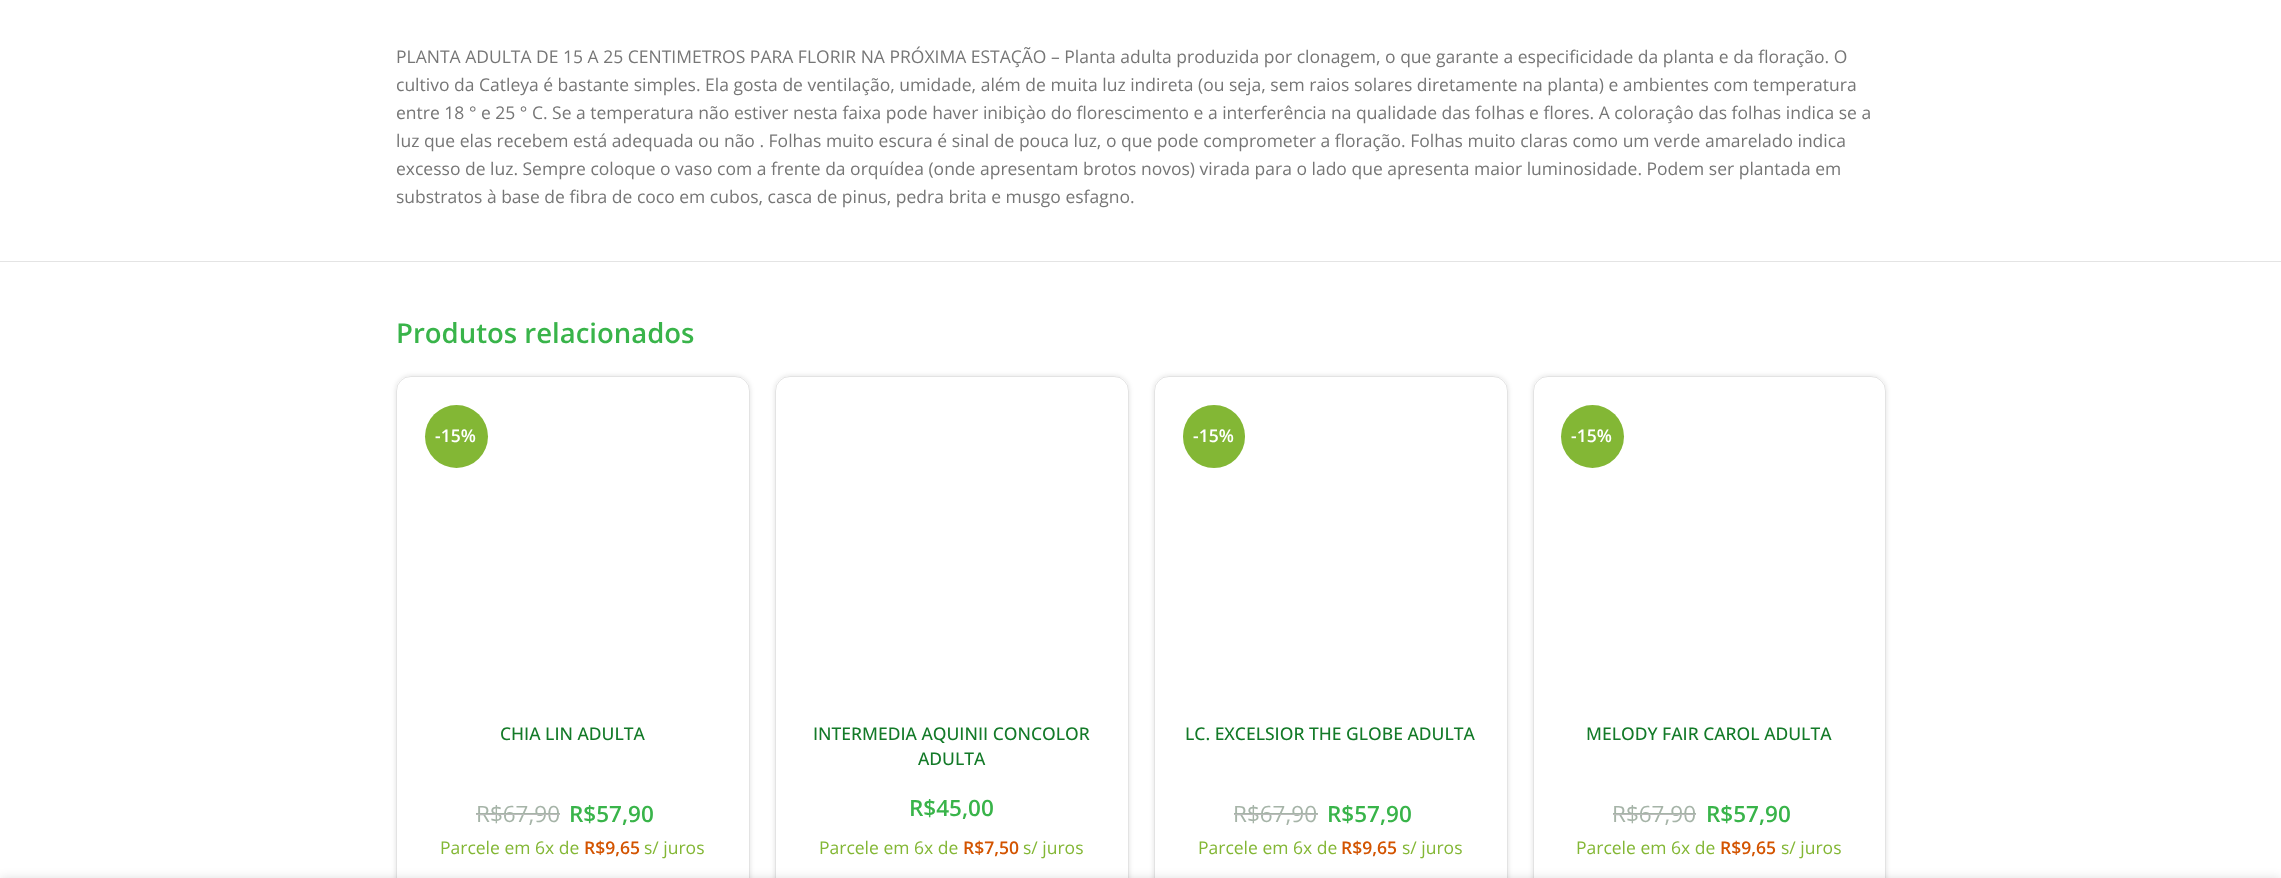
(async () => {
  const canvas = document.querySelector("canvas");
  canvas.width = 2281;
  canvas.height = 878;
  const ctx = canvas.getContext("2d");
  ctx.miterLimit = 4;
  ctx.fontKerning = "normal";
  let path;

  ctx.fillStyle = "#ffffff";
  ctx.fillRect(0, 0, 2281, 878);
  ctx.fillStyle = "#e4e4e4";
  ctx.fillRect(0, 261, 2281, 1);
  ctx.save();
  path = new Path2D("M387 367H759V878H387ZM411 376H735C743.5 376 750 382.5 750 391V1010C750 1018.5 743.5 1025 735 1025H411C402.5 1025 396 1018.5 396 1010V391C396 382.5 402.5 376 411 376Z");
  ctx.clip(path, "evenodd");
  ctx.fillStyle = "rgba(0, 0, 0, 0.12)";
  ctx.filter = "blur(2.5px)";
  ctx.beginPath();
  ctx.roundRect(396, 376, 354, 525, 15);
  ctx.fill();
  ctx.filter = "none";
  ctx.restore();
  ctx.beginPath();
  ctx.roundRect(396.5, 376.5, 353, 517, 14.5);
  ctx.strokeStyle = "rgba(0, 0, 0, 0.11)";
  ctx.stroke();
  ctx.fillStyle = "#83b735";
  ctx.beginPath();
  ctx.arc(456.5, 436.5, 31.5, 0, Math.PI * 2);
  ctx.fill();
  ctx.fillStyle = "#a6b4a8";
  ctx.fillRect(476, 813, 84, 1);
  ctx.save();
  path = new Path2D("M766 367H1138V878H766ZM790 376H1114C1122.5 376 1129 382.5 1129 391V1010C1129 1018.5 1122.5 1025 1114 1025H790C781.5 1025 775 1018.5 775 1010V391C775 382.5 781.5 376 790 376Z");
  ctx.clip(path, "evenodd");
  ctx.fillStyle = "rgba(0, 0, 0, 0.12)";
  ctx.filter = "blur(2.5px)";
  ctx.beginPath();
  ctx.roundRect(775, 376, 354, 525, 15);
  ctx.fill();
  ctx.filter = "none";
  ctx.restore();
  ctx.beginPath();
  ctx.roundRect(775.5, 376.5, 353, 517, 14.5);
  ctx.stroke();
  ctx.save();
  path = new Path2D("M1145 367H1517V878H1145ZM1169 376H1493C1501.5 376 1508 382.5 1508 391V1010C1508 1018.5 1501.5 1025 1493 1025H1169C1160.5 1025 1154 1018.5 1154 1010V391C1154 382.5 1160.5 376 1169 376Z");
  ctx.clip(path, "evenodd");
  ctx.fillStyle = "rgba(0, 0, 0, 0.12)";
  ctx.filter = "blur(2.5px)";
  ctx.beginPath();
  ctx.roundRect(1154, 376, 354, 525, 15);
  ctx.fill();
  ctx.filter = "none";
  ctx.restore();
  ctx.beginPath();
  ctx.roundRect(1154.5, 376.5, 353, 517, 14.5);
  ctx.stroke();
  ctx.fillStyle = "#83b735";
  ctx.beginPath();
  ctx.roundRect(1183, 405, 62, 63, 31);
  ctx.fill();
  ctx.fillStyle = "#a6b4a8";
  ctx.fillRect(1234, 813, 84, 1);
  ctx.save();
  path = new Path2D("M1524 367H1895V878H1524ZM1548 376H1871C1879.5 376 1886 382.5 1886 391V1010C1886 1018.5 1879.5 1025 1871 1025H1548C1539.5 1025 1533 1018.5 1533 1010V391C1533 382.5 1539.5 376 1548 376Z");
  ctx.clip(path, "evenodd");
  ctx.fillStyle = "rgba(0, 0, 0, 0.12)";
  ctx.filter = "blur(2.5px)";
  ctx.beginPath();
  ctx.roundRect(1533, 376, 353, 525, 15);
  ctx.fill();
  ctx.filter = "none";
  ctx.restore();
  ctx.beginPath();
  ctx.roundRect(1533.5, 376.5, 352, 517, 14.5);
  ctx.stroke();
  ctx.fillStyle = "#83b735";
  ctx.beginPath();
  ctx.arc(1592.5, 436.5, 31.5, 0, Math.PI * 2);
  ctx.fill();
  ctx.fillStyle = "#a6b4a8";
  ctx.fillRect(1613, 813, 83, 1);
  ctx.fillStyle = "rgba(0, 0, 0, 0.14)";
  ctx.filter = "blur(5.5px)";
  ctx.beginPath();
  ctx.rect(0, 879, 2281, 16);
  ctx.fill();
  ctx.filter = "none";
  ctx.font = "17.5px Open Sans";
  ctx.fillStyle = "#767676";
  for (const [text, x, y] of [
    ["PLANTA ADULTA DE 15 A 25 CENTIMETROS PARA FLORIR NA PRÓXIMA ESTAÇÃO – Planta adulta produzida por clonagem, o que garante a especificidade da planta e da floração. O", 396, 63],
    ["cultivo da Catleya é bastante simples. Ela gosta de ventilação, umidade, além de muita luz indireta (ou seja, sem raios solares diretamente na planta) e ambientes com temperatura", 396, 91],
    ["entre 18 ° e 25 ° C. Se a temperatura não estiver nesta faixa pode haver inibiçào do florescimento e a interferência na qualidade das folhas e flores. A coloraçâo das folhas indica se a", 396, 119],
    ["luz que elas recebem está adequada ou não . Folhas muito escura é sinal de pouca luz, o que pode comprometer a floração. Folhas muito claras como um verde amarelado indica", 396, 147],
    ["excesso de luz. Sempre coloque o vaso com a frente da orquídea (onde apresentam brotos novos) virada para o lado que apresenta maior luminosidade. Podem ser plantada em", 396, 175],
    ["substratos à base de fibra de coco em cubos, casca de pinus, pedra brita e musgo esfagno.", 396, 203],
  ]) {
    ctx.fillText(text, x, y);
  }
  ctx.font = "600 27.5px Open Sans";
  ctx.fillStyle = "#39b44a";
  ctx.fillText("Produtos relacionados", 396, 343);
  ctx.font = "600 17.5px Open Sans";
  ctx.fillStyle = "#ffffff";
  ctx.fillText("-15%", 435, 442);
  ctx.font = "500 17.5px Open Sans";
  ctx.fillStyle = "#137a28";
  ctx.fillText("CHIA LIN ADULTA", 500, 740);
  ctx.font = "22.5px Open Sans";
  ctx.fillStyle = "#a6b4a8";
  ctx.fillText("R$67,90", 476, 822);
  ctx.fillStyle = "#bbbbbb";
  ctx.fillRect(476, 814, 84, 1);
  ctx.font = "600 22.5px Open Sans";
  ctx.fillStyle = "#39b44a";
  ctx.fillText("R$57,90", 569, 822);
  ctx.font = "17.5px Open Sans";
  ctx.fillStyle = "#83b735";
  ctx.fillText("Parcele em 6x de", 440, 854);
  ctx.font = "600 17.5px Open Sans";
  ctx.fillStyle = "#d35400";
  ctx.fillText("R$9,65", 584, 854);
  ctx.font = "17.5px Open Sans";
  ctx.fillStyle = "#83b735";
  ctx.fillText("s/ juros", 644, 854);
  ctx.font = "500 17.5px Open Sans";
  ctx.fillStyle = "#137a28";
  ctx.fillText("INTERMEDIA AQUINII CONCOLOR", 813, 740);
  ctx.fillText("ADULTA", 918, 765);
  ctx.font = "600 22.5px Open Sans";
  ctx.fillStyle = "#39b44a";
  ctx.fillText("R$45,00", 909, 816);
  ctx.font = "17.5px Open Sans";
  ctx.fillStyle = "#83b735";
  ctx.fillText("Parcele em 6x de", 819, 854);
  ctx.font = "600 17.5px Open Sans";
  ctx.fillStyle = "#d35400";
  ctx.fillText("R$7,50", 963, 854);
  ctx.font = "17.5px Open Sans";
  ctx.fillStyle = "#83b735";
  ctx.fillText("s/ juros", 1023, 854);
  ctx.font = "600 17.5px Open Sans";
  ctx.fillStyle = "#ffffff";
  ctx.fillText("-15%", 1193, 442);
  ctx.font = "500 17.5px Open Sans";
  ctx.fillStyle = "#137a28";
  ctx.fillText("LC. EXCELSIOR THE GLOBE ADULTA", 1185, 740);
  ctx.font = "22.5px Open Sans";
  ctx.fillStyle = "#a6b4a8";
  ctx.fillText("R$67,90", 1233, 822);
  ctx.fillStyle = "#bbbbbb";
  ctx.fillRect(1234, 814, 84, 1);
  ctx.font = "600 22.5px Open Sans";
  ctx.fillStyle = "#39b44a";
  ctx.fillText("R$57,90", 1327, 822);
  ctx.font = "17.5px Open Sans";
  ctx.fillStyle = "#83b735";
  ctx.fillText("Parcele em 6x de", 1198, 854);
  ctx.font = "600 17.5px Open Sans";
  ctx.fillStyle = "#d35400";
  ctx.fillText("R$9,65", 1341, 854);
  ctx.font = "17.5px Open Sans";
  ctx.fillStyle = "#83b735";
  ctx.fillText("s/ juros", 1402, 854);
  ctx.font = "600 17.5px Open Sans";
  ctx.fillStyle = "#ffffff";
  ctx.fillText("-15%", 1571, 442);
  ctx.font = "500 17.5px Open Sans";
  ctx.fillStyle = "#137a28";
  ctx.fillText("MELODY FAIR CAROL ADULTA", 1586, 740);
  ctx.font = "22.5px Open Sans";
  ctx.fillStyle = "#a6b4a8";
  ctx.fillText("R$67,90", 1612, 822);
  ctx.fillStyle = "#bbbbbb";
  ctx.fillRect(1613, 814, 83, 1);
  ctx.font = "600 22.5px Open Sans";
  ctx.fillStyle = "#39b44a";
  ctx.fillText("R$57,90", 1706, 822);
  ctx.font = "17.5px Open Sans";
  ctx.fillStyle = "#83b735";
  ctx.fillText("Parcele em 6x de", 1576, 854);
  ctx.font = "600 17.5px Open Sans";
  ctx.fillStyle = "#d35400";
  ctx.fillText("R$9,65", 1720, 854);
  ctx.font = "17.5px Open Sans";
  ctx.fillStyle = "#83b735";
  ctx.fillText("s/ juros", 1781, 854);
})();
